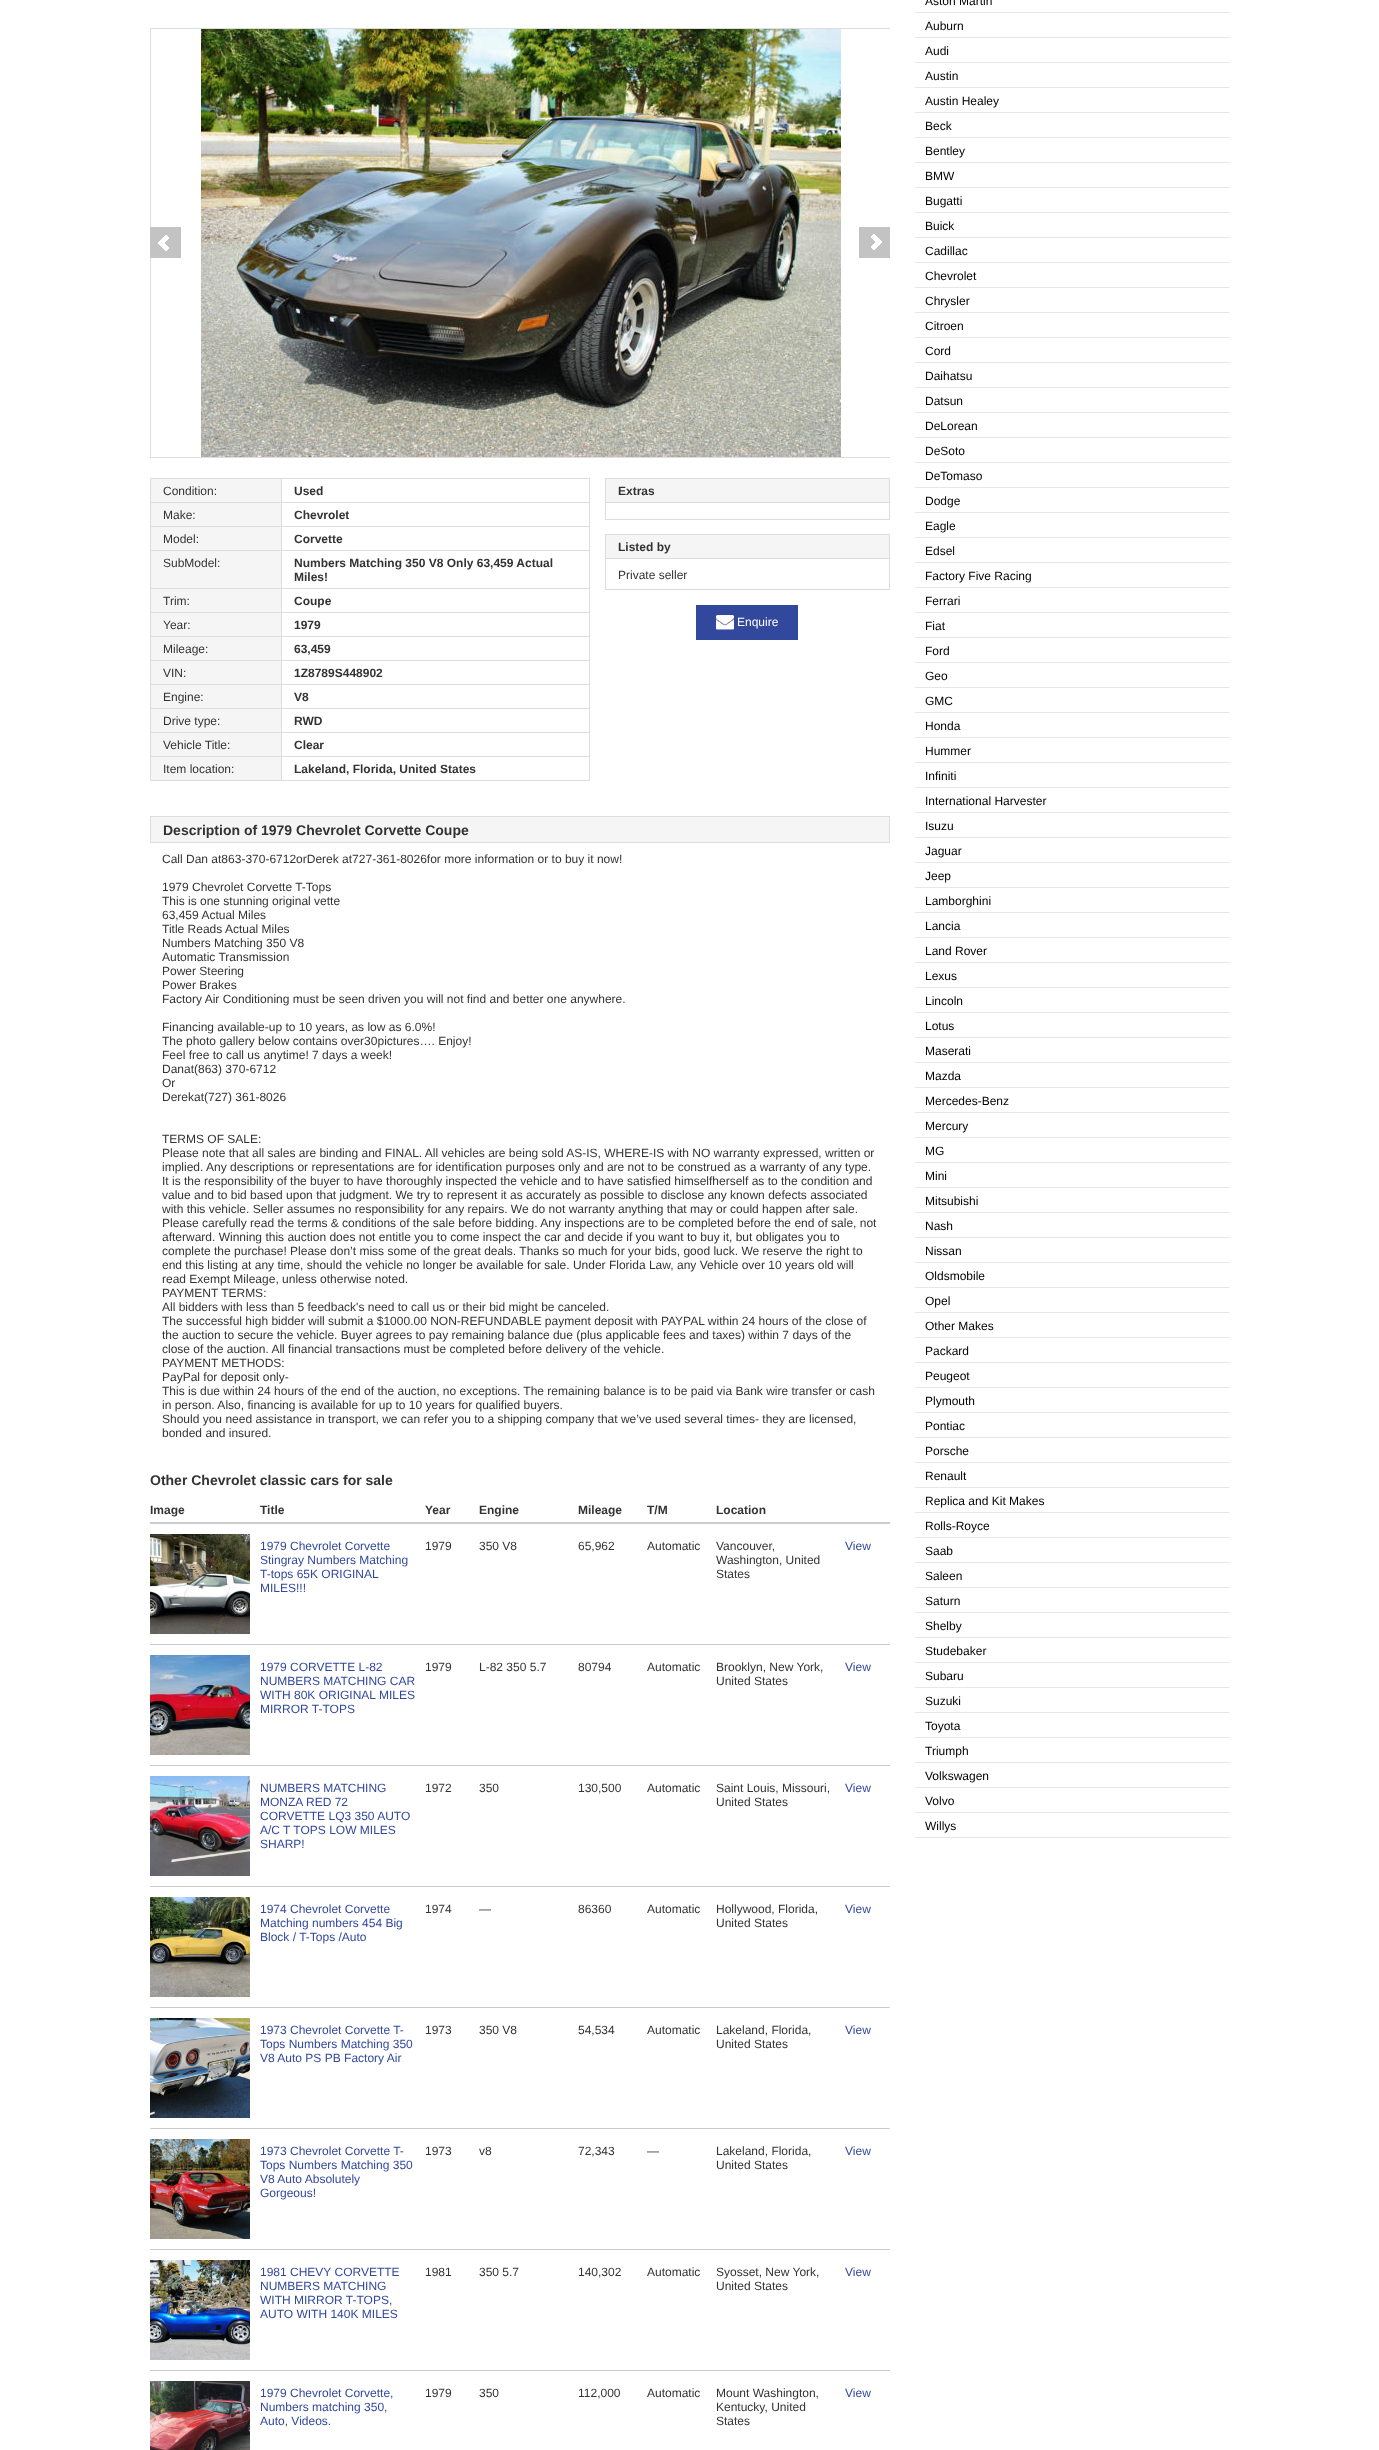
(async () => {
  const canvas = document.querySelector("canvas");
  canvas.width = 1379;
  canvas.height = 2450;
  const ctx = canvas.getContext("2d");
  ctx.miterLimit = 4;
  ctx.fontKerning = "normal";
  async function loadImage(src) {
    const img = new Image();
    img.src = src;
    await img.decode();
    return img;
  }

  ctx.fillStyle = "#ffffff";
  ctx.fillRect(0, 0, 1379, 2450);
  ctx.save();
  ctx.beginPath();
  ctx.rect(150, 28, 740, 430);
  ctx.clip();
  ctx.strokeStyle = "#dddddd";
  ctx.strokeRect(150.5, 28.5, 741, 429);
  ctx.restore();
  ctx.drawImage(await loadImage("img/1.png"), 201, 29, 640, 428);
  ctx.drawImage(await loadImage("img/2.png"), 150, 227, 31, 31);
  ctx.drawImage(await loadImage("img/3.png"), 859, 227, 31, 31);
  for (const [x, y, w, h, color] of [
    [151, 479, 130, 23, "#f5f5f5"],
    [281, 478, 309, 1, "#dddddd"],
    [281, 502, 309, 1, "#dddddd"],
    [281, 526, 309, 1, "#dddddd"],
    [281, 550, 309, 1, "#dddddd"],
    [281, 588, 309, 1, "#dddddd"],
    [281, 612, 309, 1, "#dddddd"],
    [281, 636, 309, 1, "#dddddd"],
    [281, 660, 309, 1, "#dddddd"],
    [281, 684, 309, 1, "#dddddd"],
    [281, 708, 309, 1, "#dddddd"],
    [281, 732, 309, 1, "#dddddd"],
    [281, 756, 309, 1, "#dddddd"],
    [589, 756, 1, 25, "#dddddd"],
    [281, 780, 309, 1, "#dddddd"],
    [281, 756, 1, 25, "#dddddd"],
    [150, 756, 132, 1, "#dddddd"],
    [281, 732, 1, 25, "#dddddd"],
    [150, 732, 132, 1, "#dddddd"],
    [281, 708, 1, 25, "#dddddd"],
    [150, 708, 132, 1, "#dddddd"],
    [281, 684, 1, 25, "#dddddd"],
    [150, 684, 132, 1, "#dddddd"],
    [281, 660, 1, 25, "#dddddd"],
    [150, 660, 132, 1, "#dddddd"],
    [281, 636, 1, 25, "#dddddd"],
    [150, 636, 132, 1, "#dddddd"],
    [281, 612, 1, 25, "#dddddd"],
    [150, 612, 132, 1, "#dddddd"],
    [281, 588, 1, 25, "#dddddd"],
    [150, 588, 132, 1, "#dddddd"],
    [281, 550, 1, 39, "#dddddd"],
    [150, 550, 132, 1, "#dddddd"],
    [281, 526, 1, 25, "#dddddd"],
    [150, 526, 132, 1, "#dddddd"],
    [281, 502, 1, 25, "#dddddd"],
    [150, 502, 132, 1, "#dddddd"],
    [281, 478, 1, 25, "#dddddd"],
    [150, 478, 132, 1, "#dddddd"],
    [150, 780, 132, 1, "#dddddd"],
    [150, 756, 1, 25, "#dddddd"],
    [150, 732, 1, 25, "#dddddd"],
    [150, 708, 1, 25, "#dddddd"],
    [150, 684, 1, 25, "#dddddd"],
    [150, 660, 1, 25, "#dddddd"],
    [150, 636, 1, 25, "#dddddd"],
    [150, 612, 1, 25, "#dddddd"],
    [150, 588, 1, 25, "#dddddd"],
    [150, 550, 1, 39, "#dddddd"],
    [150, 526, 1, 25, "#dddddd"],
    [150, 502, 1, 25, "#dddddd"],
    [150, 478, 1, 25, "#dddddd"],
    [589, 732, 1, 25, "#dddddd"],
    [589, 708, 1, 25, "#dddddd"],
    [589, 684, 1, 25, "#dddddd"],
    [589, 660, 1, 25, "#dddddd"],
    [589, 636, 1, 25, "#dddddd"],
    [589, 612, 1, 25, "#dddddd"],
    [589, 588, 1, 25, "#dddddd"],
    [589, 550, 1, 39, "#dddddd"],
    [589, 526, 1, 25, "#dddddd"],
    [589, 502, 1, 25, "#dddddd"],
    [589, 478, 1, 25, "#dddddd"],
    [151, 503, 130, 23, "#f5f5f5"],
    [151, 527, 130, 23, "#f5f5f5"],
    [151, 551, 130, 37, "#f5f5f5"],
    [151, 589, 130, 23, "#f5f5f5"],
    [151, 613, 130, 23, "#f5f5f5"],
    [151, 637, 130, 23, "#f5f5f5"],
    [151, 661, 130, 23, "#f5f5f5"],
    [151, 685, 130, 23, "#f5f5f5"],
    [151, 709, 130, 23, "#f5f5f5"],
    [151, 733, 130, 23, "#f5f5f5"],
    [151, 757, 130, 23, "#f5f5f5"],
    [606, 479, 283, 23, "#f5f5f5"],
    [605, 478, 285, 1, "#dddddd"],
    [605, 502, 285, 1, "#dddddd"],
    [889, 502, 1, 18, "#dddddd"],
    [889, 478, 1, 25, "#dddddd"],
    [605, 519, 285, 1, "#dddddd"],
    [605, 502, 1, 18, "#dddddd"],
    [605, 478, 1, 25, "#dddddd"],
    [606, 535, 283, 23, "#f5f5f5"],
    [605, 534, 285, 1, "#dddddd"],
    [605, 558, 285, 1, "#dddddd"],
    [889, 558, 1, 32, "#dddddd"],
    [889, 534, 1, 25, "#dddddd"],
    [605, 589, 285, 1, "#dddddd"],
    [605, 558, 1, 32, "#dddddd"],
    [605, 534, 1, 25, "#dddddd"],
    [696, 605, 102, 35, "#32489d"],
  ]) {
    ctx.fillStyle = color;
    ctx.fillRect(x, y, w, h);
  }
  ctx.drawImage(await loadImage("img/4.png"), 716, 615, 18, 15);
  for (const [x, y, w, h, color] of [
    [151, 817, 738, 25, "#f5f5f5"],
    [150, 816, 740, 1, "#dddddd"],
    [889, 816, 1, 27, "#dddddd"],
    [150, 842, 740, 1, "#dddddd"],
    [150, 816, 1, 27, "#dddddd"],
    [150, 1522, 740, 2, "#cccccc"],
  ]) {
    ctx.fillStyle = color;
    ctx.fillRect(x, y, w, h);
  }
  ctx.drawImage(await loadImage("img/5.png"), 150, 1534, 100, 100);
  ctx.fillRect(150, 1644, 740, 1);
  ctx.drawImage(await loadImage("img/6.png"), 150, 1655, 100, 100);
  ctx.fillRect(150, 1765, 740, 1);
  ctx.drawImage(await loadImage("img/7.png"), 150, 1776, 100, 100);
  ctx.fillRect(150, 1886, 740, 1);
  ctx.drawImage(await loadImage("img/8.png"), 150, 1897, 100, 100);
  ctx.fillRect(150, 2007, 740, 1);
  ctx.drawImage(await loadImage("img/9.png"), 150, 2018, 100, 100);
  ctx.fillRect(150, 2128, 740, 1);
  ctx.drawImage(await loadImage("img/10.png"), 150, 2139, 100, 100);
  ctx.fillRect(150, 2249, 740, 1);
  ctx.drawImage(await loadImage("img/11.png"), 150, 2260, 100, 100);
  ctx.fillRect(150, 2370, 740, 1);
  ctx.drawImage(await loadImage("img/12.png"), 150, 2381, 100, 69);
  for (const [x, y, w, h, color] of [
    [915, 12, 315, 1, "#e7e7e7"],
    [915, 37, 315, 1, "#e7e7e7"],
    [915, 62, 315, 1, "#e7e7e7"],
    [915, 87, 315, 1, "#e7e7e7"],
    [915, 112, 315, 1, "#e7e7e7"],
    [915, 137, 315, 1, "#e7e7e7"],
    [915, 162, 315, 1, "#e7e7e7"],
    [915, 187, 315, 1, "#e7e7e7"],
    [915, 212, 315, 1, "#e7e7e7"],
    [915, 237, 315, 1, "#e7e7e7"],
    [915, 262, 315, 1, "#e7e7e7"],
    [915, 287, 315, 1, "#e7e7e7"],
    [915, 312, 315, 1, "#e7e7e7"],
    [915, 337, 315, 1, "#e7e7e7"],
    [915, 362, 315, 1, "#e7e7e7"],
    [915, 387, 315, 1, "#e7e7e7"],
    [915, 412, 315, 1, "#e7e7e7"],
    [915, 437, 315, 1, "#e7e7e7"],
    [915, 462, 315, 1, "#e7e7e7"],
    [915, 487, 315, 1, "#e7e7e7"],
    [915, 512, 315, 1, "#e7e7e7"],
    [915, 537, 315, 1, "#e7e7e7"],
    [915, 562, 315, 1, "#e7e7e7"],
    [915, 587, 315, 1, "#e7e7e7"],
    [915, 612, 315, 1, "#e7e7e7"],
    [915, 637, 315, 1, "#e7e7e7"],
    [915, 662, 315, 1, "#e7e7e7"],
    [915, 687, 315, 1, "#e7e7e7"],
    [915, 712, 315, 1, "#e7e7e7"],
    [915, 737, 315, 1, "#e7e7e7"],
    [915, 762, 315, 1, "#e7e7e7"],
    [915, 787, 315, 1, "#e7e7e7"],
    [915, 812, 315, 1, "#e7e7e7"],
    [915, 837, 315, 1, "#e7e7e7"],
    [915, 862, 315, 1, "#e7e7e7"],
    [915, 887, 315, 1, "#e7e7e7"],
    [915, 912, 315, 1, "#e7e7e7"],
    [915, 937, 315, 1, "#e7e7e7"],
    [915, 962, 315, 1, "#e7e7e7"],
    [915, 987, 315, 1, "#e7e7e7"],
    [915, 1012, 315, 1, "#e7e7e7"],
    [915, 1037, 315, 1, "#e7e7e7"],
    [915, 1062, 315, 1, "#e7e7e7"],
    [915, 1087, 315, 1, "#e7e7e7"],
    [915, 1112, 315, 1, "#e7e7e7"],
    [915, 1137, 315, 1, "#e7e7e7"],
    [915, 1162, 315, 1, "#e7e7e7"],
    [915, 1187, 315, 1, "#e7e7e7"],
    [915, 1212, 315, 1, "#e7e7e7"],
    [915, 1237, 315, 1, "#e7e7e7"],
    [915, 1262, 315, 1, "#e7e7e7"],
    [915, 1287, 315, 1, "#e7e7e7"],
    [915, 1312, 315, 1, "#e7e7e7"],
    [915, 1337, 315, 1, "#e7e7e7"],
    [915, 1362, 315, 1, "#e7e7e7"],
    [915, 1387, 315, 1, "#e7e7e7"],
    [915, 1412, 315, 1, "#e7e7e7"],
    [915, 1437, 315, 1, "#e7e7e7"],
    [915, 1462, 315, 1, "#e7e7e7"],
    [915, 1487, 315, 1, "#e7e7e7"],
    [915, 1512, 315, 1, "#e7e7e7"],
    [915, 1537, 315, 1, "#e7e7e7"],
    [915, 1562, 315, 1, "#e7e7e7"],
    [915, 1587, 315, 1, "#e7e7e7"],
    [915, 1612, 315, 1, "#e7e7e7"],
    [915, 1637, 315, 1, "#e7e7e7"],
    [915, 1662, 315, 1, "#e7e7e7"],
    [915, 1687, 315, 1, "#e7e7e7"],
    [915, 1712, 315, 1, "#e7e7e7"],
    [915, 1737, 315, 1, "#e7e7e7"],
    [915, 1762, 315, 1, "#e7e7e7"],
    [915, 1787, 315, 1, "#e7e7e7"],
    [915, 1812, 315, 1, "#e7e7e7"],
    [915, 1837, 315, 1, "#e7e7e7"],
  ]) {
    ctx.fillStyle = color;
    ctx.fillRect(x, y, w, h);
  }
  ctx.font = "12px Liberation Sans";
  ctx.fillStyle = "#333333";
  ctx.fillText("Condition:", 163, 495);
  ctx.font = "bold 12px Liberation Sans";
  ctx.fillText("Used", 294, 495);
  ctx.font = "12px Liberation Sans";
  ctx.fillText("Make:", 163, 519);
  ctx.font = "bold 12px Liberation Sans";
  ctx.fillText("Chevrolet", 294, 519);
  ctx.font = "12px Liberation Sans";
  ctx.fillText("Model:", 163, 543);
  ctx.font = "bold 12px Liberation Sans";
  ctx.fillText("Corvette", 294, 543);
  ctx.font = "12px Liberation Sans";
  ctx.fillText("SubModel:", 163, 567);
  ctx.font = "bold 12px Liberation Sans";
  ctx.fillText("Numbers Matching 350 V8 Only 63,459 Actual", 294, 567);
  ctx.fillText("Miles!", 294, 581);
  ctx.font = "12px Liberation Sans";
  ctx.fillText("Trim:", 163, 605);
  ctx.font = "bold 12px Liberation Sans";
  ctx.fillText("Coupe", 294, 605);
  ctx.font = "12px Liberation Sans";
  ctx.fillText("Year:", 163, 629);
  ctx.font = "bold 12px Liberation Sans";
  ctx.fillText("1979", 294, 629);
  ctx.font = "12px Liberation Sans";
  ctx.fillText("Mileage:", 163, 653);
  ctx.font = "bold 12px Liberation Sans";
  ctx.fillText("63,459", 294, 653);
  ctx.font = "12px Liberation Sans";
  ctx.fillText("VIN:", 163, 677);
  ctx.font = "bold 12px Liberation Sans";
  ctx.fillText("1Z8789S448902", 294, 677);
  ctx.font = "12px Liberation Sans";
  ctx.fillText("Engine:", 163, 701);
  ctx.font = "bold 12px Liberation Sans";
  ctx.fillText("V8", 294, 701);
  ctx.font = "12px Liberation Sans";
  ctx.fillText("Drive type:", 163, 725);
  ctx.font = "bold 12px Liberation Sans";
  ctx.fillText("RWD", 294, 725);
  ctx.font = "12px Liberation Sans";
  ctx.fillText("Vehicle Title:", 163, 749);
  ctx.font = "bold 12px Liberation Sans";
  ctx.fillText("Clear", 294, 749);
  ctx.font = "12px Liberation Sans";
  ctx.fillText("Item location:", 163, 773);
  ctx.font = "bold 12px Liberation Sans";
  for (const [text, x, y] of [
    ["Lakeland, Florida, United States", 294, 773],
    ["Extras", 618, 495],
    ["Listed by", 618, 551],
  ]) {
    ctx.fillText(text, x, y);
  }
  ctx.font = "12px Liberation Sans";
  ctx.fillText("Private seller", 618, 579);
  ctx.fillStyle = "#ffffff";
  ctx.fillText("Enquire", 737, 626);
  ctx.font = "bold 14px Liberation Sans";
  ctx.fillStyle = "#333333";
  ctx.fillText("Description of 1979 Chevrolet Corvette Coupe", 163, 835);
  ctx.font = "12px Liberation Sans";
  for (const [text, x, y] of [
    ["Call Dan at863-370-6712orDerek at727-361-8026for more information or to buy it now!", 162, 863],
    ["1979 Chevrolet Corvette T-Tops", 162, 891],
    ["This is one stunning original vette", 162, 905],
    ["63,459 Actual Miles", 162, 919],
    ["Title Reads Actual Miles", 162, 933],
    ["Numbers Matching 350 V8", 162, 947],
    ["Automatic Transmission", 162, 961],
    ["Power Steering", 162, 975],
    ["Power Brakes", 162, 989],
    ["Factory Air Conditioning must be seen driven you will not find and better one anywhere.", 162, 1003],
    ["Financing available-up to 10 years, as low as 6.0%!", 162, 1031],
    ["The photo gallery below contains over30pictures…. Enjoy!", 162, 1045],
    ["Feel free to call us anytime! 7 days a week!", 162, 1059],
    ["Danat(863) 370-6712", 162, 1073],
    ["Or", 162, 1087],
    ["Derekat(727) 361-8026", 162, 1101],
    ["TERMS OF SALE:", 162, 1143],
    ["Please note that all sales are binding and FINAL. All vehicles are being sold AS-IS, WHERE-IS with NO warranty expressed, written or", 162, 1157],
    ["implied. Any descriptions or representations are for identification purposes only and are not to be construed as a warranty of any type.", 162, 1171],
    ["It is the responsibility of the buyer to have thoroughly inspected the vehicle and to have satisfied himselfherself as to the condition and", 162, 1185],
    ["value and to bid based upon that judgment. We try to represent it as accurately as possible to disclose any known defects associated", 162, 1199],
    ["with this vehicle. Seller assumes no responsibility for any repairs. We do not warranty anything that may or could happen after sale.", 162, 1213],
    ["Please carefully read the terms & conditions of the sale before bidding. Any inspections are to be completed before the end of sale, not", 162, 1227],
    ["afterward. Winning this auction does not entitle you to come inspect the car and decide if you want to buy it, but obligates you to", 162, 1241],
    ["complete the purchase! Please don’t miss some of the great deals. Thanks so much for your bids, good luck. We reserve the right to", 162, 1255],
    ["end this listing at any time, should the vehicle no longer be available for sale. Under Florida Law, any Vehicle over 10 years old will", 162, 1269],
    ["read Exempt Mileage, unless otherwise noted.", 162, 1283],
    ["PAYMENT TERMS:", 162, 1297],
    ["All bidders with less than 5 feedback's need to call us or their bid might be canceled.", 162, 1311],
    ["The successful high bidder will submit a $1000.00 NON-REFUNDABLE payment deposit with PAYPAL within 24 hours of the close of", 162, 1325],
    ["the auction to secure the vehicle. Buyer agrees to pay remaining balance due (plus applicable fees and taxes) within 7 days of the", 162, 1339],
    ["close of the auction. All financial transactions must be completed before delivery of the vehicle.", 162, 1353],
    ["PAYMENT METHODS:", 162, 1367],
    ["PayPal for deposit only-", 162, 1381],
    ["This is due within 24 hours of the end of the auction, no exceptions. The remaining balance is to be paid via Bank wire transfer or cash", 162, 1395],
    ["in person. Also, financing is available for up to 10 years for qualified buyers.", 162, 1409],
    ["Should you need assistance in transport, we can refer you to a shipping company that we’ve used several times- they are licensed,", 162, 1423],
    ["bonded and insured.", 162, 1437],
  ]) {
    ctx.fillText(text, x, y);
  }
  ctx.font = "bold 14px Liberation Sans";
  ctx.fillText("Other Chevrolet classic cars for sale", 150, 1485);
  ctx.font = "bold 12px Liberation Sans";
  for (const [text, x, y] of [
    ["Image", 150, 1514],
    ["Title", 260, 1514],
    ["Year", 425, 1514],
    ["Engine", 479, 1514],
    ["Mileage", 578, 1514],
    ["T/M", 647, 1514],
    ["Location", 716, 1514],
  ]) {
    ctx.fillText(text, x, y);
  }
  ctx.font = "12px Liberation Sans";
  ctx.fillStyle = "#32489d";
  for (const [text, x, y] of [
    ["1979 Chevrolet Corvette", 260, 1550],
    ["Stingray Numbers Matching", 260, 1564],
    ["T-tops 65K ORIGINAL", 260, 1578],
    ["MILES!!!", 260, 1592],
  ]) {
    ctx.fillText(text, x, y);
  }
  ctx.fillStyle = "#333333";
  for (const [text, x, y] of [
    ["1979", 425, 1550],
    ["350 V8", 479, 1550],
    ["65,962", 578, 1550],
    ["Automatic", 647, 1550],
    ["Vancouver,", 716, 1550],
    ["Washington, United", 716, 1564],
    ["States", 716, 1578],
  ]) {
    ctx.fillText(text, x, y);
  }
  ctx.fillStyle = "#32489d";
  for (const [text, x, y] of [
    ["View", 845, 1550],
    ["1979 CORVETTE L-82", 260, 1671],
    ["NUMBERS MATCHING CAR", 260, 1685],
    ["WITH 80K ORIGINAL MILES", 260, 1699],
    ["MIRROR T-TOPS", 260, 1713],
  ]) {
    ctx.fillText(text, x, y);
  }
  ctx.fillStyle = "#333333";
  for (const [text, x, y] of [
    ["1979", 425, 1671],
    ["L-82 350 5.7", 479, 1671],
    ["80794", 578, 1671],
    ["Automatic", 647, 1671],
    ["Brooklyn, New York,", 716, 1671],
    ["United States", 716, 1685],
  ]) {
    ctx.fillText(text, x, y);
  }
  ctx.fillStyle = "#32489d";
  for (const [text, x, y] of [
    ["View", 845, 1671],
    ["NUMBERS MATCHING", 260, 1792],
    ["MONZA RED 72", 260, 1806],
    ["CORVETTE LQ3 350 AUTO", 260, 1820],
    ["A/C T TOPS LOW MILES", 260, 1834],
    ["SHARP!", 260, 1848],
  ]) {
    ctx.fillText(text, x, y);
  }
  ctx.fillStyle = "#333333";
  for (const [text, x, y] of [
    ["1972", 425, 1792],
    ["350", 479, 1792],
    ["130,500", 578, 1792],
    ["Automatic", 647, 1792],
    ["Saint Louis, Missouri,", 716, 1792],
    ["United States", 716, 1806],
  ]) {
    ctx.fillText(text, x, y);
  }
  ctx.fillStyle = "#32489d";
  for (const [text, x, y] of [
    ["View", 845, 1792],
    ["1974 Chevrolet Corvette", 260, 1913],
    ["Matching numbers 454 Big", 260, 1927],
    ["Block / T-Tops /Auto", 260, 1941],
  ]) {
    ctx.fillText(text, x, y);
  }
  ctx.fillStyle = "#333333";
  for (const [text, x, y] of [
    ["1974", 425, 1913],
    ["—", 479, 1913],
    ["86360", 578, 1913],
    ["Automatic", 647, 1913],
    ["Hollywood, Florida,", 716, 1913],
    ["United States", 716, 1927],
  ]) {
    ctx.fillText(text, x, y);
  }
  ctx.fillStyle = "#32489d";
  for (const [text, x, y] of [
    ["View", 845, 1913],
    ["1973 Chevrolet Corvette T-", 260, 2034],
    ["Tops Numbers Matching 350", 260, 2048],
    ["V8 Auto PS PB Factory Air", 260, 2062],
  ]) {
    ctx.fillText(text, x, y);
  }
  ctx.fillStyle = "#333333";
  for (const [text, x, y] of [
    ["1973", 425, 2034],
    ["350 V8", 479, 2034],
    ["54,534", 578, 2034],
    ["Automatic", 647, 2034],
    ["Lakeland, Florida,", 716, 2034],
    ["United States", 716, 2048],
  ]) {
    ctx.fillText(text, x, y);
  }
  ctx.fillStyle = "#32489d";
  for (const [text, x, y] of [
    ["View", 845, 2034],
    ["1973 Chevrolet Corvette T-", 260, 2155],
    ["Tops Numbers Matching 350", 260, 2169],
    ["V8 Auto Absolutely", 260, 2183],
    ["Gorgeous!", 260, 2197],
  ]) {
    ctx.fillText(text, x, y);
  }
  ctx.fillStyle = "#333333";
  for (const [text, x, y] of [
    ["1973", 425, 2155],
    ["v8", 479, 2155],
    ["72,343", 578, 2155],
    ["—", 647, 2155],
    ["Lakeland, Florida,", 716, 2155],
    ["United States", 716, 2169],
  ]) {
    ctx.fillText(text, x, y);
  }
  ctx.fillStyle = "#32489d";
  for (const [text, x, y] of [
    ["View", 845, 2155],
    ["1981 CHEVY CORVETTE", 260, 2276],
    ["NUMBERS MATCHING", 260, 2290],
    ["WITH MIRROR T-TOPS,", 260, 2304],
    ["AUTO WITH 140K MILES", 260, 2318],
  ]) {
    ctx.fillText(text, x, y);
  }
  ctx.fillStyle = "#333333";
  for (const [text, x, y] of [
    ["1981", 425, 2276],
    ["350 5.7", 479, 2276],
    ["140,302", 578, 2276],
    ["Automatic", 647, 2276],
    ["Syosset, New York,", 716, 2276],
    ["United States", 716, 2290],
  ]) {
    ctx.fillText(text, x, y);
  }
  ctx.fillStyle = "#32489d";
  for (const [text, x, y] of [
    ["View", 845, 2276],
    ["1979 Chevrolet Corvette,", 260, 2397],
    ["Numbers matching 350,", 260, 2411],
    ["Auto, Videos.", 260, 2425],
  ]) {
    ctx.fillText(text, x, y);
  }
  ctx.fillStyle = "#333333";
  for (const [text, x, y] of [
    ["1979", 425, 2397],
    ["350", 479, 2397],
    ["112,000", 578, 2397],
    ["Automatic", 647, 2397],
    ["Mount Washington,", 716, 2397],
    ["Kentucky, United", 716, 2411],
    ["States", 716, 2425],
  ]) {
    ctx.fillText(text, x, y);
  }
  ctx.fillStyle = "#32489d";
  ctx.fillText("View", 845, 2397);
  ctx.fillStyle = "#000000";
  for (const [text, x, y] of [
    ["Aston Martin", 925, 5],
    ["Auburn", 925, 30],
    ["Audi", 925, 55],
    ["Austin", 925, 80],
    ["Austin Healey", 925, 105],
    ["Beck", 925, 130],
    ["Bentley", 925, 155],
    ["BMW", 925, 180],
    ["Bugatti", 925, 205],
    ["Buick", 925, 230],
    ["Cadillac", 925, 255],
    ["Chevrolet", 925, 280],
    ["Chrysler", 925, 305],
    ["Citroen", 925, 330],
    ["Cord", 925, 355],
    ["Daihatsu", 925, 380],
    ["Datsun", 925, 405],
    ["DeLorean", 925, 430],
    ["DeSoto", 925, 455],
    ["DeTomaso", 925, 480],
    ["Dodge", 925, 505],
    ["Eagle", 925, 530],
    ["Edsel", 925, 555],
    ["Factory Five Racing", 925, 580],
    ["Ferrari", 925, 605],
    ["Fiat", 925, 630],
    ["Ford", 925, 655],
    ["Geo", 925, 680],
    ["GMC", 925, 705],
    ["Honda", 925, 730],
    ["Hummer", 925, 755],
    ["Infiniti", 925, 780],
    ["International Harvester", 925, 805],
    ["Isuzu", 925, 830],
    ["Jaguar", 925, 855],
    ["Jeep", 925, 880],
    ["Lamborghini", 925, 905],
    ["Lancia", 925, 930],
    ["Land Rover", 925, 955],
    ["Lexus", 925, 980],
    ["Lincoln", 925, 1005],
    ["Lotus", 925, 1030],
    ["Maserati", 925, 1055],
    ["Mazda", 925, 1080],
    ["Mercedes-Benz", 925, 1105],
    ["Mercury", 925, 1130],
    ["MG", 925, 1155],
    ["Mini", 925, 1180],
    ["Mitsubishi", 925, 1205],
    ["Nash", 925, 1230],
    ["Nissan", 925, 1255],
    ["Oldsmobile", 925, 1280],
    ["Opel", 925, 1305],
    ["Other Makes", 925, 1330],
    ["Packard", 925, 1355],
    ["Peugeot", 925, 1380],
    ["Plymouth", 925, 1405],
    ["Pontiac", 925, 1430],
    ["Porsche", 925, 1455],
    ["Renault", 925, 1480],
    ["Replica and Kit Makes", 925, 1505],
    ["Rolls-Royce", 925, 1530],
    ["Saab", 925, 1555],
    ["Saleen", 925, 1580],
    ["Saturn", 925, 1605],
    ["Shelby", 925, 1630],
    ["Studebaker", 925, 1655],
    ["Subaru", 925, 1680],
    ["Suzuki", 925, 1705],
    ["Toyota", 925, 1730],
    ["Triumph", 925, 1755],
    ["Volkswagen", 925, 1780],
    ["Volvo", 925, 1805],
    ["Willys", 925, 1830],
  ]) {
    ctx.fillText(text, x, y);
  }
})();
